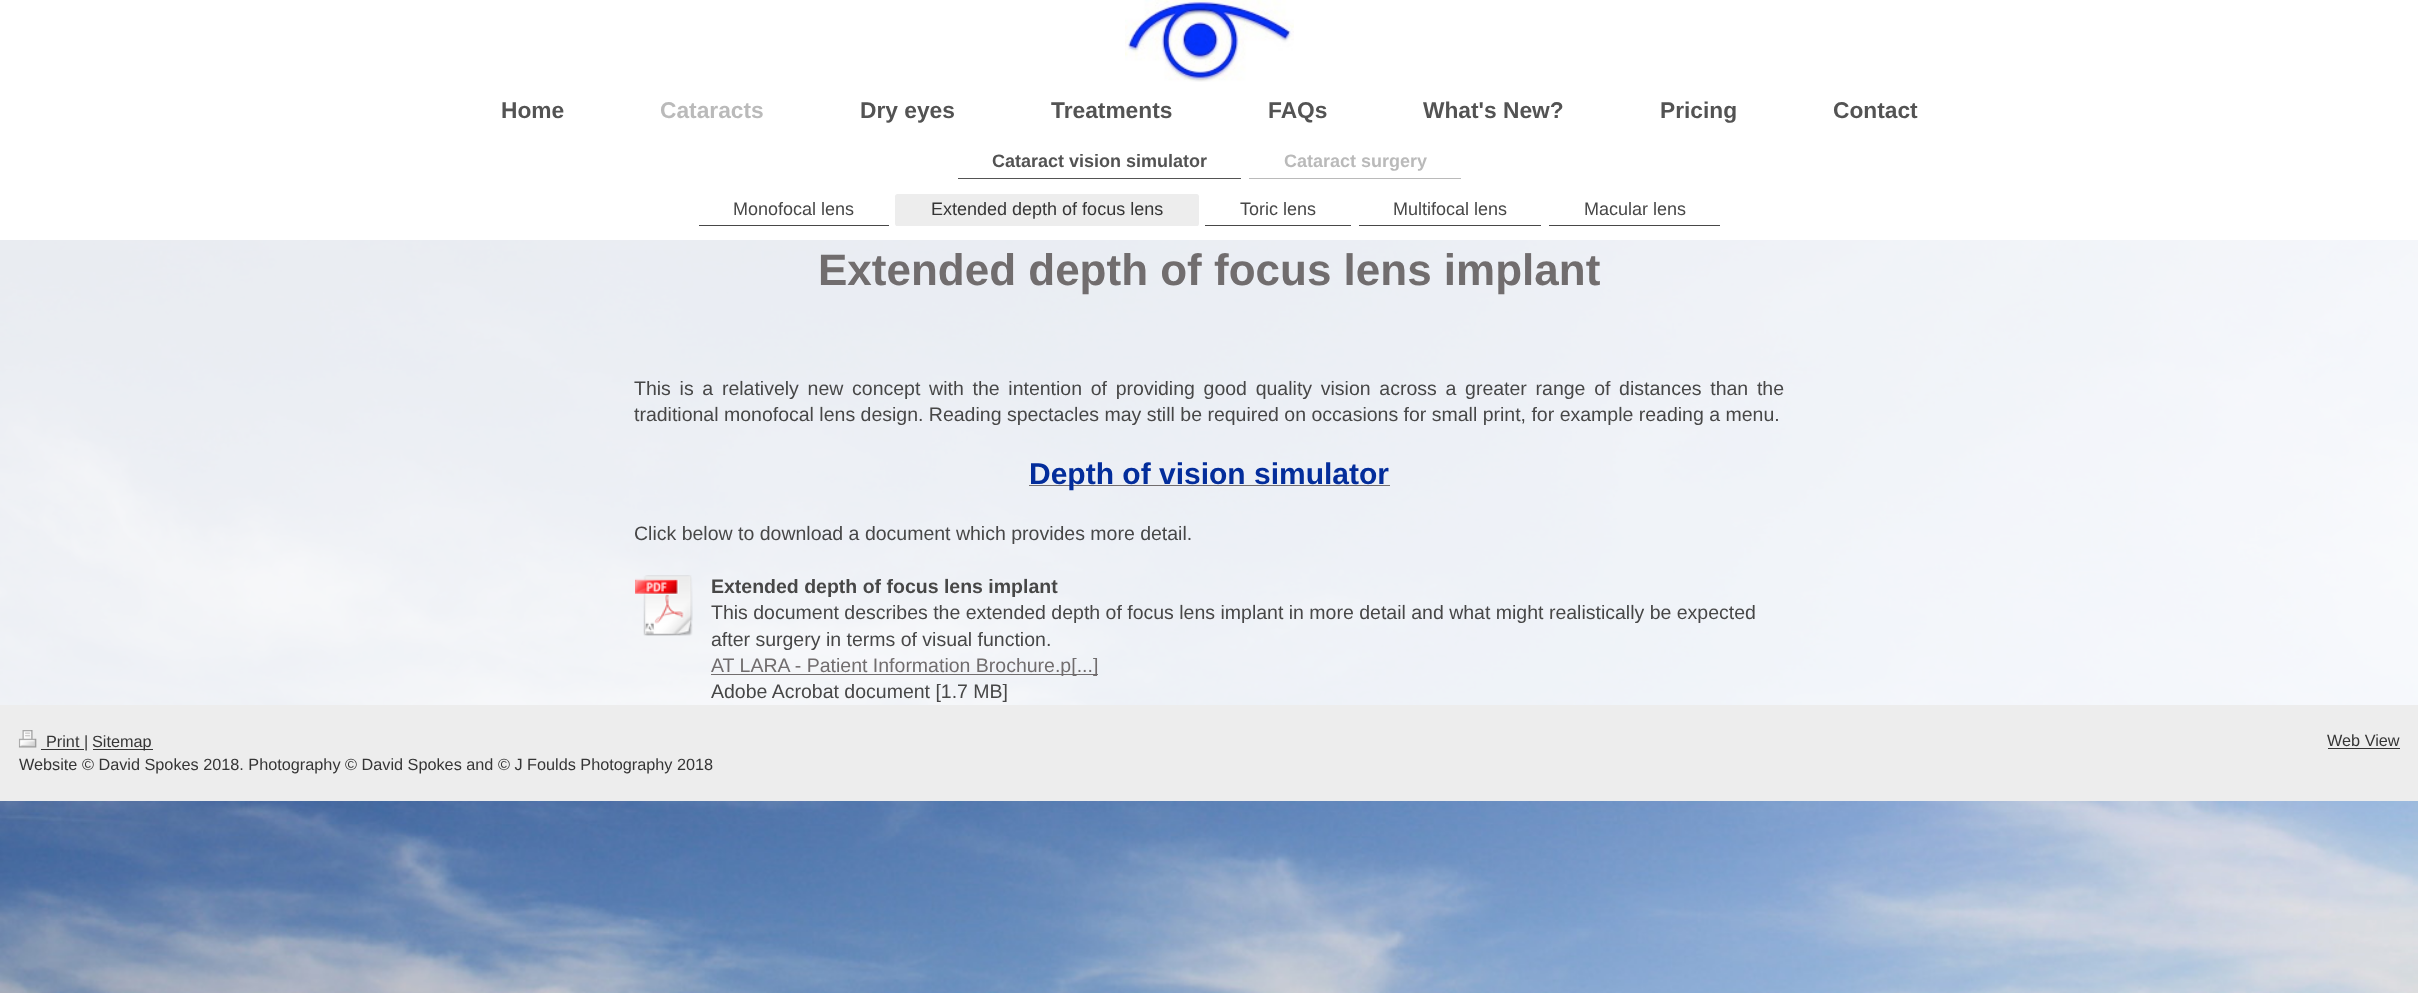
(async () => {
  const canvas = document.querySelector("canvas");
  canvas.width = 2418;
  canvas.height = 993;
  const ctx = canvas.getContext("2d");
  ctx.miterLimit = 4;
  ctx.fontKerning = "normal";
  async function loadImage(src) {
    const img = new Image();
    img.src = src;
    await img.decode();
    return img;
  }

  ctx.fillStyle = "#ffffff";
  ctx.fillRect(0, 0, 2418, 993);
  ctx.drawImage(await loadImage("img/1.png"), 0, 240, 2418, 753);
  ctx.drawImage(await loadImage("img/2.png"), 1125, 0, 169, 82);
  for (const [x, y, w, h, color] of [
    [958, 178, 283, 1, "#535353"],
    [1249, 178, 212, 1, "#bababa"],
    [699, 225, 190, 1, "#474747"],
  ]) {
    ctx.fillStyle = color;
    ctx.fillRect(x, y, w, h);
  }
  ctx.fillStyle = "#ededed";
  ctx.beginPath();
  ctx.roundRect(895, 194, 304, 32, 2.5);
  ctx.fill();
  for (const [x, y, w, h, color] of [
    [896, 225, 302, 1, "#ededed"],
    [1205, 225, 146, 1, "#474747"],
    [1359, 225, 182, 1, "#474747"],
    [1549, 225, 171, 1, "#474747"],
    [0, 240, 2418, 465, "rgba(255, 255, 255, 0.9)"],
    [1029, 485, 361, 1, "#716d6e"],
  ]) {
    ctx.fillStyle = color;
    ctx.fillRect(x, y, w, h);
  }
  ctx.drawImage(await loadImage("img/3.png"), 635, 575, 58, 61);
  ctx.fillRect(711, 674, 387, 1);
  ctx.fillStyle = "#ededed";
  ctx.fillRect(0, 705, 2418, 96);
  ctx.drawImage(await loadImage("img/4.png"), 18, 730, 19, 18);
  for (const [x, y, w, h, color] of [
    [41, 749, 43, 1, "#353535"],
    [93, 749, 60, 1, "#353535"],
    [2328, 748, 72, 1, "#353535"],
  ]) {
    ctx.fillStyle = color;
    ctx.fillRect(x, y, w, h);
  }
  ctx.font = "bold 22.75px Liberation Sans";
  ctx.fillStyle = "#535353";
  ctx.fillText("Home", 501, 118);
  ctx.fillStyle = "#bababa";
  ctx.fillText("Cataracts", 660, 118);
  ctx.fillStyle = "#535353";
  for (const [text, x, y] of [
    ["Dry eyes", 860, 118],
    ["Treatments", 1051, 118],
    ["FAQs", 1268, 118],
    ["What's New?", 1423, 118],
    ["Pricing", 1660, 118],
    ["Contact", 1833, 118],
  ]) {
    ctx.fillText(text, x, y);
  }
  ctx.font = "bold 18px Liberation Sans";
  ctx.fillText("Cataract vision simulator", 992, 167);
  ctx.fillStyle = "#bababa";
  ctx.fillText("Cataract surgery", 1284, 167);
  ctx.font = "18px Liberation Sans";
  ctx.fillStyle = "#474747";
  ctx.fillText("Monofocal lens", 733, 215);
  ctx.fillStyle = "#353535";
  ctx.fillText("Extended depth of focus lens", 931, 215);
  ctx.fillStyle = "#474747";
  for (const [text, x, y] of [
    ["Toric lens", 1240, 215],
    ["Multifocal lens", 1393, 215],
    ["Macular lens", 1584, 215],
  ]) {
    ctx.fillText(text, x, y);
  }
  ctx.font = "bold 44px Liberation Sans";
  ctx.fillStyle = "#716d6e";
  ctx.fillText("Extended depth of focus lens implant", 818, 285);
  ctx.wordSpacing = "3.3px";
  ctx.font = "19.5px Liberation Sans";
  ctx.fillStyle = "#474747";
  ctx.fillText("This is a relatively new concept with the intention of providing good quality vision across a greater range of distances than the", 634, 395);
  ctx.wordSpacing = "0px";
  ctx.fillText("traditional monofocal lens design. Reading spectacles may still be required on occasions for small print, for example reading a menu.", 634, 421);
  ctx.font = "bold 30px Liberation Sans";
  ctx.fillStyle = "#032d9b";
  ctx.fillText("Depth of vision simulator", 1029, 484);
  ctx.font = "19.5px Liberation Sans";
  ctx.fillStyle = "#474747";
  ctx.fillText("Click below to download a document which provides more detail.", 634, 540);
  ctx.font = "bold 19.5px Liberation Sans";
  ctx.fillText("Extended depth of focus lens implant", 711, 593);
  ctx.font = "19.5px Liberation Sans";
  ctx.fillText("This document describes the extended depth of focus lens implant in more detail and what might realistically be expected", 711, 619);
  ctx.fillText("after surgery in terms of visual function.", 711, 646);
  ctx.fillStyle = "#716d6e";
  ctx.fillText("AT LARA - Patient Information Brochure.p[...]", 711, 672);
  ctx.fillStyle = "#474747";
  ctx.fillText("Adobe Acrobat document [1.7 MB]", 711, 698);
  ctx.font = "16.25px Liberation Sans";
  ctx.fillStyle = "#353535";
  for (const [text, x, y] of [
    ["Print |", 46, 747],
    ["Sitemap", 92, 747],
    ["Website © David Spokes 2018. Photography © David Spokes and © J Foulds Photography 2018", 19, 770],
    ["Web View", 2327, 746],
  ]) {
    ctx.fillText(text, x, y);
  }
})();
